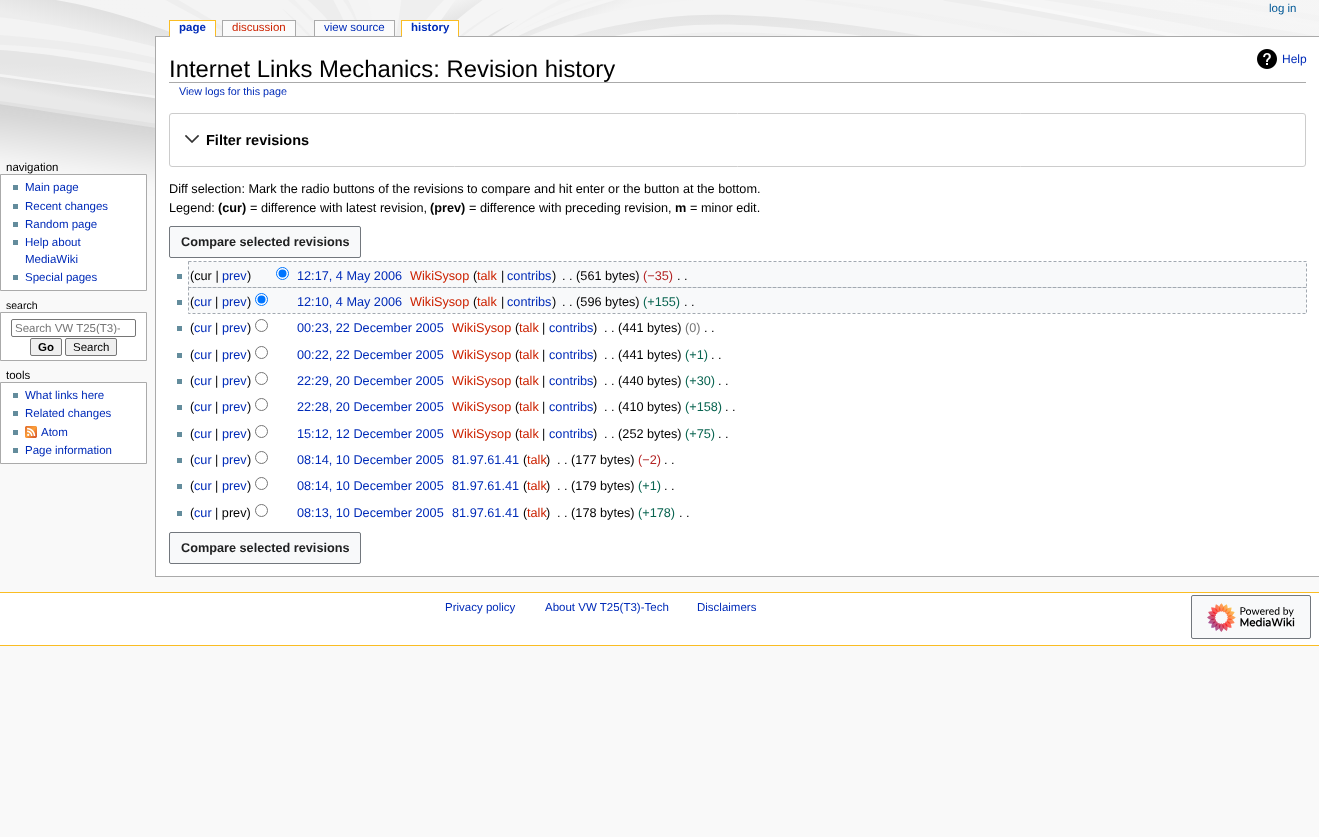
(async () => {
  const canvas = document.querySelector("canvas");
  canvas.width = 1319;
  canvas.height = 837;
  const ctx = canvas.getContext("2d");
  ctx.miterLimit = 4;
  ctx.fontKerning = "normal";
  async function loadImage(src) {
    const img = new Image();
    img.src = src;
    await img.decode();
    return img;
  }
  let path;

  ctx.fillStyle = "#f9f9f9";
  ctx.fillRect(0, 0, 1319, 837);
  ctx.drawImage(await loadImage("img/1.png"), 0, 0, 1319, 210);
  for (const [x, y, w, h, color] of [
    [169, 20, 47, 1, "#fabd23"],
    [215, 20, 1, 16, "#fabd23"],
    [169, 20, 1, 16, "#fabd23"],
    [155, 36, 1164, 1, "#aaaaaa"],
    [170, 21, 45, 16, "#ffffff"],
    [222, 20, 74, 1, "#aaaaaa"],
    [295, 20, 1, 16, "#aaaaaa"],
    [222, 20, 1, 16, "#aaaaaa"],
    [223, 21, 72, 15, "#fbfbfb"],
    [314, 20, 81, 1, "#aaaaaa"],
    [394, 20, 1, 16, "#aaaaaa"],
    [314, 20, 1, 16, "#aaaaaa"],
    [315, 21, 79, 15, "#fbfbfb"],
    [401, 20, 58, 1, "#fabd23"],
    [458, 20, 1, 16, "#fabd23"],
    [401, 20, 1, 16, "#fabd23"],
    [402, 21, 56, 16, "#ffffff"],
  ]) {
    ctx.fillStyle = color;
    ctx.fillRect(x, y, w, h);
  }
  ctx.beginPath();
  ctx.rect(0.5, 174.5, 146, 116);
  ctx.fill();
  ctx.strokeStyle = "#aaaaaa";
  ctx.stroke();
  for (const [x, y, w, h, color] of [
    [13, 185, 5, 5, "#638c9c"],
    [13, 204, 5, 5, "#638c9c"],
    [13, 222, 5, 5, "#638c9c"],
    [13, 240, 5, 5, "#638c9c"],
    [13, 275, 5, 5, "#638c9c"],
  ]) {
    ctx.fillStyle = color;
    ctx.fillRect(x, y, w, h);
  }
  ctx.fillStyle = "#ffffff";
  ctx.beginPath();
  ctx.rect(0.5, 312.5, 146, 48);
  ctx.fill();
  ctx.stroke();
  ctx.beginPath();
  ctx.roundRect(11.5, 319.5, 124, 17, 1.5);
  ctx.strokeStyle = "#767676";
  ctx.stroke();
  ctx.fillStyle = "#efefef";
  ctx.beginPath();
  ctx.roundRect(30.5, 338.5, 31, 17, 1.5);
  ctx.fill();
  ctx.stroke();
  ctx.beginPath();
  ctx.roundRect(65.5, 338.5, 51, 17, 1.5);
  ctx.fill();
  ctx.stroke();
  ctx.fillStyle = "#ffffff";
  ctx.beginPath();
  ctx.rect(0.5, 382.5, 146, 81);
  ctx.fill();
  ctx.strokeStyle = "#aaaaaa";
  ctx.stroke();
  for (const [x, y, w, h, color] of [
    [13, 393, 5, 5, "#638c9c"],
    [13, 411, 5, 5, "#638c9c"],
    [13, 430, 5, 5, "#638c9c"],
  ]) {
    ctx.fillStyle = color;
    ctx.fillRect(x, y, w, h);
  }
  ctx.drawImage(await loadImage("img/2.png"), 25, 426, 12, 12);
  for (const [x, y, w, h, color] of [
    [13, 448, 5, 5, "#638c9c"],
    [156, 37, 1163, 539, "#ffffff"],
    [155, 576, 1164, 1, "#aaaaaa"],
    [155, 36, 1, 541, "#aaaaaa"],
    [169, 82, 1137, 1, "#aaaaaa"],
  ]) {
    ctx.fillStyle = color;
    ctx.fillRect(x, y, w, h);
  }
  ctx.drawImage(await loadImage("img/3.png"), 1257, 49, 20, 20);
  ctx.beginPath();
  ctx.roundRect(169.5, 113.5, 1136, 53, 2.5);
  ctx.strokeStyle = "#cccccc";
  ctx.stroke();
  ctx.drawImage(await loadImage("img/4.png"), 185, 135, 15, 8);
  ctx.fillStyle = "#f8f9fa";
  ctx.beginPath();
  ctx.roundRect(169.5, 226.5, 191, 31, 1.5);
  ctx.fill();
  ctx.strokeStyle = "#72777d";
  ctx.stroke();
  ctx.fillRect(189, 262, 1117, 25);
  ctx.fillStyle = "#638c9c";
  ctx.fillRect(177, 274, 5, 5);
  ctx.fillStyle = "#ffffff";
  ctx.beginPath();
  ctx.arc(282.5, 273.5, 6, 0, Math.PI * 2);
  ctx.fill();
  ctx.strokeStyle = "#0075ff";
  ctx.stroke();
  ctx.fillStyle = "#0075ff";
  ctx.beginPath();
  ctx.arc(282.5, 273.5, 4, 0, Math.PI * 2);
  ctx.fill();
  ctx.fillStyle = "#f8f9fa";
  ctx.fillRect(189, 288, 1117, 25);
  ctx.fillStyle = "#638c9c";
  ctx.fillRect(177, 300, 5, 5);
  ctx.fillStyle = "#ffffff";
  ctx.beginPath();
  ctx.arc(261.5, 299.5, 6, 0, Math.PI * 2);
  ctx.fill();
  ctx.stroke();
  ctx.fillStyle = "#0075ff";
  ctx.beginPath();
  ctx.arc(261.5, 299.5, 4, 0, Math.PI * 2);
  ctx.fill();
  ctx.fillStyle = "#638c9c";
  ctx.fillRect(177, 326, 5, 5);
  ctx.beginPath();
  ctx.arc(261.5, 325.5, 6, 0, Math.PI * 2);
  ctx.strokeStyle = "#767676";
  ctx.stroke();
  ctx.fillRect(177, 353, 5, 5);
  ctx.beginPath();
  ctx.arc(261.5, 352.5, 6, 0, Math.PI * 2);
  ctx.stroke();
  ctx.fillRect(177, 379, 5, 5);
  ctx.beginPath();
  ctx.arc(261.5, 378.5, 6, 0, Math.PI * 2);
  ctx.stroke();
  ctx.fillRect(177, 405, 5, 5);
  ctx.beginPath();
  ctx.arc(261.5, 404.5, 6, 0, Math.PI * 2);
  ctx.stroke();
  ctx.fillRect(177, 432, 5, 5);
  ctx.beginPath();
  ctx.arc(261.5, 431.5, 6, 0, Math.PI * 2);
  ctx.stroke();
  ctx.fillRect(177, 458, 5, 5);
  ctx.beginPath();
  ctx.arc(261.5, 457.5, 6, 0, Math.PI * 2);
  ctx.stroke();
  ctx.fillRect(177, 484, 5, 5);
  ctx.beginPath();
  ctx.arc(261.5, 483.5, 6, 0, Math.PI * 2);
  ctx.stroke();
  ctx.fillRect(177, 511, 5, 5);
  ctx.beginPath();
  ctx.arc(261.5, 510.5, 6, 0, Math.PI * 2);
  ctx.stroke();
  ctx.fillStyle = "#f8f9fa";
  ctx.beginPath();
  ctx.roundRect(169.5, 532.5, 191, 31, 1.5);
  ctx.fill();
  ctx.strokeStyle = "#72777d";
  ctx.stroke();
  for (const [x, y, w, h, color] of [
    [0, 593, 1319, 52, "#ffffff"],
    [0, 592, 1319, 1, "#fabd23"],
    [0, 645, 1319, 1, "#fabd23"],
  ]) {
    ctx.fillStyle = color;
    ctx.fillRect(x, y, w, h);
  }
  ctx.fillStyle = "#f8f9fa";
  ctx.beginPath();
  ctx.roundRect(1191.5, 595.5, 119, 43, 1.5);
  ctx.fill();
  ctx.stroke();
  ctx.drawImage(await loadImage("img/5.png"), 1207, 603, 88, 29);
  ctx.font = "11.5px Liberation Sans";
  ctx.fillStyle = "#005896";
  ctx.fillText("log in", 1269, 12);
  ctx.font = "bold 11.5px Liberation Sans";
  ctx.fillStyle = "#002bb8";
  ctx.fillText("page", 179, 31);
  ctx.font = "11.5px Liberation Sans";
  ctx.fillStyle = "#cc2200";
  ctx.fillText("discussion", 232, 31);
  ctx.fillStyle = "#002bb8";
  ctx.fillText("view source", 324, 31);
  ctx.font = "bold 11.5px Liberation Sans";
  ctx.fillText("history", 411, 31);
  ctx.font = "11.5px Liberation Sans";
  ctx.fillStyle = "#000000";
  ctx.fillText("navigation", 6, 171);
  ctx.fillStyle = "#002bb8";
  for (const [text, x, y] of [
    ["Main page", 25, 191],
    ["Recent changes", 25, 210],
    ["Random page", 25, 228],
    ["Help about", 25, 246],
    ["MediaWiki", 25, 263],
    ["Special pages", 25, 281],
  ]) {
    ctx.fillText(text, x, y);
  }
  ctx.font = "10.5px Liberation Sans";
  ctx.fillStyle = "#000000";
  ctx.fillText("search", 6, 309);
  ctx.save();
  ctx.beginPath();
  ctx.rect(15, 322, 105, 12);
  ctx.clip();
  ctx.font = "11.5px Liberation Sans";
  ctx.fillStyle = "#767676";
  ctx.fillText("Search VW T25(T3)-", 15, 332);
  ctx.restore();
  ctx.font = "bold 11.5px Liberation Sans";
  ctx.fillText("Go", 38, 351);
  ctx.font = "11.5px Liberation Sans";
  ctx.fillText("Search", 73, 351);
  ctx.fillText("tools", 6, 379);
  ctx.fillStyle = "#002bb8";
  for (const [text, x, y] of [
    ["What links here", 25, 399],
    ["Related changes", 25, 417],
    ["Atom", 41, 436],
    ["Page information", 25, 454],
  ]) {
    ctx.fillText(text, x, y);
  }
  ctx.font = "23.9px Liberation Sans";
  ctx.fillStyle = "#000000";
  ctx.fillText("Internet Links Mechanics: Revision history", 169, 77);
  ctx.font = "12px Liberation Sans";
  ctx.fillStyle = "#002bb8";
  ctx.fillText("Help", 1282, 63);
  ctx.font = "10.75px Liberation Sans";
  ctx.fillText("View logs for this page", 179, 95);
  ctx.font = "bold 14.5px Liberation Sans";
  ctx.fillStyle = "#000000";
  ctx.fillText("Filter revisions", 206, 145);
  ctx.font = "12.7px Liberation Sans";
  ctx.fillText("Diff selection: Mark the radio buttons of the revisions to compare and hit enter or the button at the bottom.", 169, 193);
  ctx.fillText("Legend:", 169, 212);
  ctx.font = "bold 12.7px Liberation Sans";
  ctx.fillText("(cur)", 218, 212);
  ctx.font = "12.7px Liberation Sans";
  ctx.fillText("= difference with latest revision,", 250, 212);
  ctx.font = "bold 12.7px Liberation Sans";
  ctx.fillText("(prev)", 430, 212);
  ctx.font = "12.7px Liberation Sans";
  ctx.fillText("= difference with preceding revision,", 469, 212);
  ctx.font = "bold 12.7px Liberation Sans";
  ctx.fillText("m", 675, 212);
  ctx.font = "12.7px Liberation Sans";
  ctx.fillText("= minor edit.", 690, 212);
  ctx.font = "bold 12.7px Liberation Sans";
  ctx.fillStyle = "#202122";
  ctx.fillText("Compare selected revisions", 181, 246);
  ctx.font = "12.7px Liberation Sans";
  ctx.fillStyle = "#000000";
  ctx.fillText("(cur |", 190, 280);
  ctx.fillStyle = "#002bb8";
  ctx.fillText("prev", 222, 280);
  ctx.fillStyle = "#000000";
  ctx.fillText(")", 247, 280);
  ctx.fillStyle = "#002bb8";
  ctx.fillText("12:17, 4 May 2006", 297, 280);
  ctx.fillStyle = "#cc2200";
  ctx.fillText("WikiSysop", 410, 280);
  ctx.fillStyle = "#000000";
  ctx.fillText("(", 473, 280);
  ctx.fillStyle = "#cc2200";
  ctx.fillText("talk", 477, 280);
  ctx.fillStyle = "#000000";
  ctx.fillText("|", 501, 280);
  ctx.fillStyle = "#002bb8";
  ctx.fillText("contribs", 507, 280);
  ctx.fillStyle = "#000000";
  ctx.fillText(")", 552, 280);
  ctx.fillText(". . (561 bytes)", 562, 280);
  ctx.fillStyle = "#b32424";
  ctx.fillText("(−35)", 643, 280);
  ctx.fillStyle = "#000000";
  ctx.fillText(". .", 677, 280);
  path = new Path2D("M188.5 261.5H1306.5V287.5H188.5Z");
  ctx.strokeStyle = "#a2a9b1";
  ctx.setLineDash([3, 2]);
  ctx.stroke(path);
  ctx.fillText("(", 190, 306);
  ctx.fillStyle = "#002bb8";
  ctx.fillText("cur", 194, 306);
  ctx.fillStyle = "#000000";
  ctx.fillText("|", 215, 306);
  ctx.fillStyle = "#002bb8";
  ctx.fillText("prev", 222, 306);
  ctx.fillStyle = "#000000";
  ctx.fillText(")", 247, 306);
  ctx.fillStyle = "#002bb8";
  ctx.fillText("12:10, 4 May 2006", 297, 306);
  ctx.fillStyle = "#cc2200";
  ctx.fillText("WikiSysop", 410, 306);
  ctx.fillStyle = "#000000";
  ctx.fillText("(", 473, 306);
  ctx.fillStyle = "#cc2200";
  ctx.fillText("talk", 477, 306);
  ctx.fillStyle = "#000000";
  ctx.fillText("|", 501, 306);
  ctx.fillStyle = "#002bb8";
  ctx.fillText("contribs", 507, 306);
  ctx.fillStyle = "#000000";
  ctx.fillText(")", 552, 306);
  ctx.fillText(". . (596 bytes)", 562, 306);
  ctx.fillStyle = "#096450";
  ctx.fillText("(+155)", 643, 306);
  ctx.fillStyle = "#000000";
  ctx.fillText(". .", 684, 306);
  path = new Path2D("M188.5 287.5H1306.5V313.5H188.5Z");
  ctx.stroke(path);
  ctx.fillText("(", 190, 332);
  ctx.fillStyle = "#002bb8";
  ctx.fillText("cur", 194, 332);
  ctx.fillStyle = "#000000";
  ctx.fillText("|", 215, 332);
  ctx.fillStyle = "#002bb8";
  ctx.fillText("prev", 222, 332);
  ctx.fillStyle = "#000000";
  ctx.fillText(")", 247, 332);
  ctx.fillStyle = "#002bb8";
  ctx.fillText("00:23, 22 December 2005", 297, 332);
  ctx.fillStyle = "#cc2200";
  ctx.fillText("WikiSysop", 452, 332);
  ctx.fillStyle = "#000000";
  ctx.fillText("(", 515, 332);
  ctx.fillStyle = "#cc2200";
  ctx.fillText("talk", 519, 332);
  ctx.fillStyle = "#000000";
  ctx.fillText("|", 542, 332);
  ctx.fillStyle = "#002bb8";
  ctx.fillText("contribs", 549, 332);
  ctx.fillStyle = "#000000";
  ctx.fillText(")", 593, 332);
  ctx.fillText(". . (441 bytes)", 604, 332);
  ctx.fillStyle = "#767676";
  ctx.fillText("(0)", 685, 332);
  ctx.fillStyle = "#000000";
  ctx.fillText(". .", 704, 332);
  ctx.fillText("(", 190, 359);
  ctx.fillStyle = "#002bb8";
  ctx.fillText("cur", 194, 359);
  ctx.fillStyle = "#000000";
  ctx.fillText("|", 215, 359);
  ctx.fillStyle = "#002bb8";
  ctx.fillText("prev", 222, 359);
  ctx.fillStyle = "#000000";
  ctx.fillText(")", 247, 359);
  ctx.fillStyle = "#002bb8";
  ctx.fillText("00:22, 22 December 2005", 297, 359);
  ctx.fillStyle = "#cc2200";
  ctx.fillText("WikiSysop", 452, 359);
  ctx.fillStyle = "#000000";
  ctx.fillText("(", 515, 359);
  ctx.fillStyle = "#cc2200";
  ctx.fillText("talk", 519, 359);
  ctx.fillStyle = "#000000";
  ctx.fillText("|", 542, 359);
  ctx.fillStyle = "#002bb8";
  ctx.fillText("contribs", 549, 359);
  ctx.fillStyle = "#000000";
  ctx.fillText(")", 593, 359);
  ctx.fillText(". . (441 bytes)", 604, 359);
  ctx.fillStyle = "#096450";
  ctx.fillText("(+1)", 685, 359);
  ctx.fillStyle = "#000000";
  ctx.fillText(". .", 711, 359);
  ctx.fillText("(", 190, 385);
  ctx.fillStyle = "#002bb8";
  ctx.fillText("cur", 194, 385);
  ctx.fillStyle = "#000000";
  ctx.fillText("|", 215, 385);
  ctx.fillStyle = "#002bb8";
  ctx.fillText("prev", 222, 385);
  ctx.fillStyle = "#000000";
  ctx.fillText(")", 247, 385);
  ctx.fillStyle = "#002bb8";
  ctx.fillText("22:29, 20 December 2005", 297, 385);
  ctx.fillStyle = "#cc2200";
  ctx.fillText("WikiSysop", 452, 385);
  ctx.fillStyle = "#000000";
  ctx.fillText("(", 515, 385);
  ctx.fillStyle = "#cc2200";
  ctx.fillText("talk", 519, 385);
  ctx.fillStyle = "#000000";
  ctx.fillText("|", 542, 385);
  ctx.fillStyle = "#002bb8";
  ctx.fillText("contribs", 549, 385);
  ctx.fillStyle = "#000000";
  ctx.fillText(")", 593, 385);
  ctx.fillText(". . (440 bytes)", 604, 385);
  ctx.fillStyle = "#096450";
  ctx.fillText("(+30)", 685, 385);
  ctx.fillStyle = "#000000";
  ctx.fillText(". .", 718, 385);
  ctx.fillText("(", 190, 411);
  ctx.fillStyle = "#002bb8";
  ctx.fillText("cur", 194, 411);
  ctx.fillStyle = "#000000";
  ctx.fillText("|", 215, 411);
  ctx.fillStyle = "#002bb8";
  ctx.fillText("prev", 222, 411);
  ctx.fillStyle = "#000000";
  ctx.fillText(")", 247, 411);
  ctx.fillStyle = "#002bb8";
  ctx.fillText("22:28, 20 December 2005", 297, 411);
  ctx.fillStyle = "#cc2200";
  ctx.fillText("WikiSysop", 452, 411);
  ctx.fillStyle = "#000000";
  ctx.fillText("(", 515, 411);
  ctx.fillStyle = "#cc2200";
  ctx.fillText("talk", 519, 411);
  ctx.fillStyle = "#000000";
  ctx.fillText("|", 542, 411);
  ctx.fillStyle = "#002bb8";
  ctx.fillText("contribs", 549, 411);
  ctx.fillStyle = "#000000";
  ctx.fillText(")", 593, 411);
  ctx.fillText(". . (410 bytes)", 604, 411);
  ctx.fillStyle = "#096450";
  ctx.fillText("(+158)", 685, 411);
  ctx.fillStyle = "#000000";
  ctx.fillText(". .", 725, 411);
  ctx.fillText("(", 190, 438);
  ctx.fillStyle = "#002bb8";
  ctx.fillText("cur", 194, 438);
  ctx.fillStyle = "#000000";
  ctx.fillText("|", 215, 438);
  ctx.fillStyle = "#002bb8";
  ctx.fillText("prev", 222, 438);
  ctx.fillStyle = "#000000";
  ctx.fillText(")", 247, 438);
  ctx.fillStyle = "#002bb8";
  ctx.fillText("15:12, 12 December 2005", 297, 438);
  ctx.fillStyle = "#cc2200";
  ctx.fillText("WikiSysop", 452, 438);
  ctx.fillStyle = "#000000";
  ctx.fillText("(", 515, 438);
  ctx.fillStyle = "#cc2200";
  ctx.fillText("talk", 519, 438);
  ctx.fillStyle = "#000000";
  ctx.fillText("|", 542, 438);
  ctx.fillStyle = "#002bb8";
  ctx.fillText("contribs", 549, 438);
  ctx.fillStyle = "#000000";
  ctx.fillText(")", 593, 438);
  ctx.fillText(". . (252 bytes)", 604, 438);
  ctx.fillStyle = "#096450";
  ctx.fillText("(+75)", 685, 438);
  ctx.fillStyle = "#000000";
  ctx.fillText(". .", 718, 438);
  ctx.fillText("(", 190, 464);
  ctx.fillStyle = "#002bb8";
  ctx.fillText("cur", 194, 464);
  ctx.fillStyle = "#000000";
  ctx.fillText("|", 215, 464);
  ctx.fillStyle = "#002bb8";
  ctx.fillText("prev", 222, 464);
  ctx.fillStyle = "#000000";
  ctx.fillText(")", 247, 464);
  ctx.fillStyle = "#002bb8";
  ctx.fillText("08:14, 10 December 2005", 297, 464);
  ctx.fillText("81.97.61.41", 452, 464);
  ctx.fillStyle = "#000000";
  ctx.fillText("(", 523, 464);
  ctx.fillStyle = "#cc2200";
  ctx.fillText("talk", 527, 464);
  ctx.fillStyle = "#000000";
  ctx.fillText(")", 546, 464);
  ctx.fillText(". . (177 bytes)", 557, 464);
  ctx.fillStyle = "#b32424";
  ctx.fillText("(−2)", 638, 464);
  ctx.fillStyle = "#000000";
  ctx.fillText(". .", 664, 464);
  ctx.fillText("(", 190, 490);
  ctx.fillStyle = "#002bb8";
  ctx.fillText("cur", 194, 490);
  ctx.fillStyle = "#000000";
  ctx.fillText("|", 215, 490);
  ctx.fillStyle = "#002bb8";
  ctx.fillText("prev", 222, 490);
  ctx.fillStyle = "#000000";
  ctx.fillText(")", 247, 490);
  ctx.fillStyle = "#002bb8";
  ctx.fillText("08:14, 10 December 2005", 297, 490);
  ctx.fillText("81.97.61.41", 452, 490);
  ctx.fillStyle = "#000000";
  ctx.fillText("(", 523, 490);
  ctx.fillStyle = "#cc2200";
  ctx.fillText("talk", 527, 490);
  ctx.fillStyle = "#000000";
  ctx.fillText(")", 546, 490);
  ctx.fillText(". . (179 bytes)", 557, 490);
  ctx.fillStyle = "#096450";
  ctx.fillText("(+1)", 638, 490);
  ctx.fillStyle = "#000000";
  ctx.fillText(". .", 664, 490);
  ctx.fillText("(", 190, 517);
  ctx.fillStyle = "#002bb8";
  ctx.fillText("cur", 194, 517);
  ctx.fillStyle = "#000000";
  ctx.fillText("| prev)", 215, 517);
  ctx.fillStyle = "#002bb8";
  ctx.fillText("08:13, 10 December 2005", 297, 517);
  ctx.fillText("81.97.61.41", 452, 517);
  ctx.fillStyle = "#000000";
  ctx.fillText("(", 523, 517);
  ctx.fillStyle = "#cc2200";
  ctx.fillText("talk", 527, 517);
  ctx.fillStyle = "#000000";
  ctx.fillText(")", 546, 517);
  ctx.fillText(". . (178 bytes)", 557, 517);
  ctx.fillStyle = "#096450";
  ctx.fillText("(+178)", 638, 517);
  ctx.fillStyle = "#000000";
  ctx.fillText(". .", 679, 517);
  ctx.font = "bold 12.7px Liberation Sans";
  ctx.fillStyle = "#202122";
  ctx.fillText("Compare selected revisions", 181, 552);
  ctx.font = "11.5px Liberation Sans";
  ctx.fillStyle = "#002bb8";
  for (const [text, x, y] of [
    ["Privacy policy", 445, 611],
    ["About VW T25(T3)-Tech", 545, 611],
    ["Disclaimers", 697, 611],
  ]) {
    ctx.fillText(text, x, y);
  }
})();
